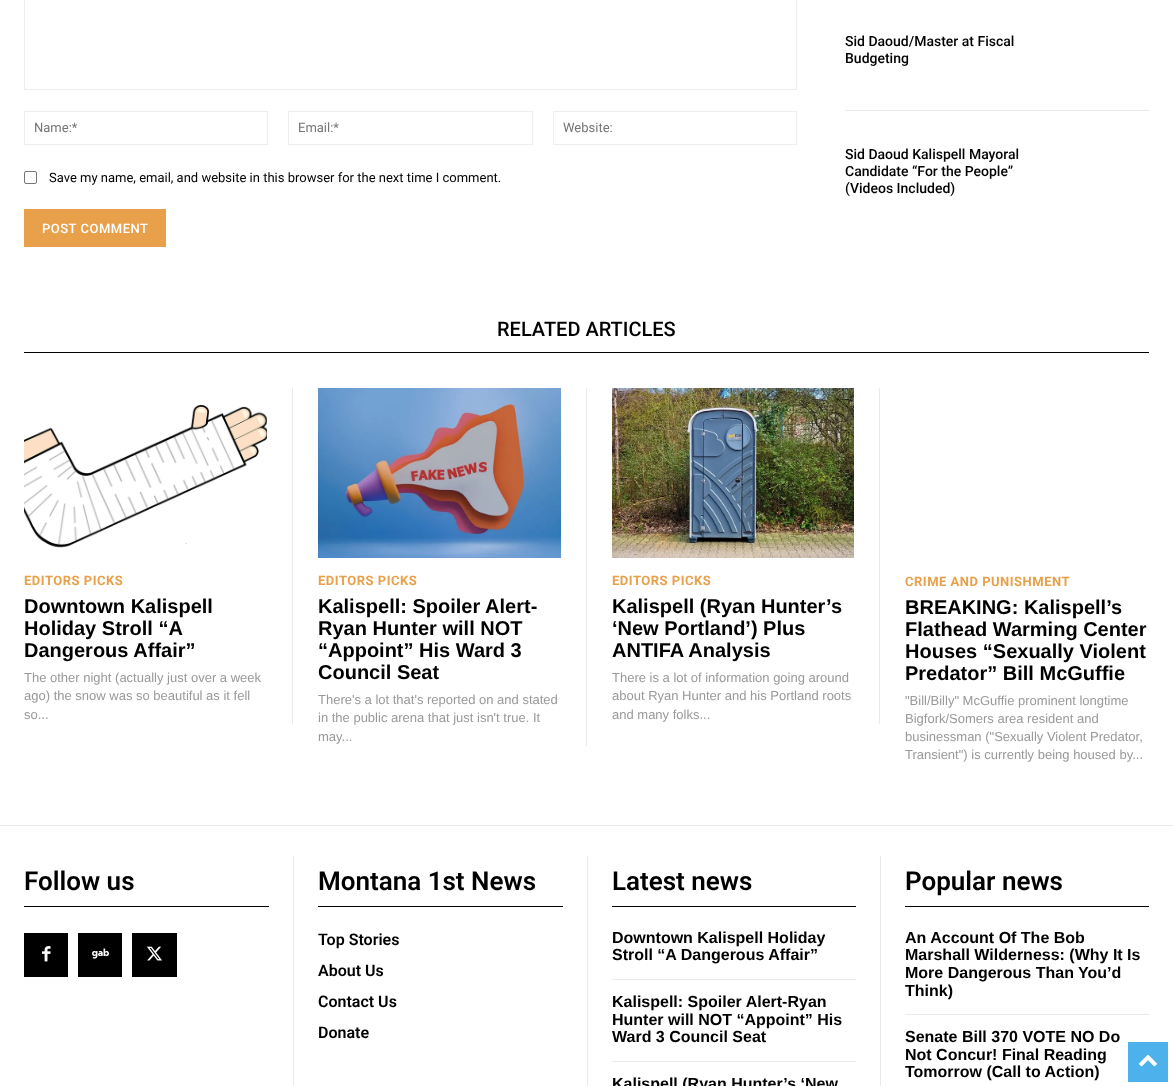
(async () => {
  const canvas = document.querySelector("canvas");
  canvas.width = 1173;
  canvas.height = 1086;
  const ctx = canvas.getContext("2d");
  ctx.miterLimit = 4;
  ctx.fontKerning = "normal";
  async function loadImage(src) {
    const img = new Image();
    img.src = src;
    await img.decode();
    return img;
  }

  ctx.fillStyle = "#ffffff";
  ctx.fillRect(0, 0, 1173, 1086);
  ctx.strokeStyle = "#ededed";
  ctx.strokeRect(24.5, -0.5, 772, 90);
  ctx.strokeRect(24.5, 111.5, 243, 33);
  ctx.strokeRect(288.5, 111.5, 244, 33);
  ctx.strokeRect(553.5, 111.5, 243, 33);
  ctx.beginPath();
  ctx.roundRect(24.5, 171.5, 12, 12, 1.5);
  ctx.strokeStyle = "#767676";
  ctx.stroke();
  for (const [x, y, w, h, color] of [
    [24, 209, 142, 38, "#e8a04b"],
    [845, 110, 304, 1, "#eaeaea"],
    [24, 352, 1125, 1, "#000000"],
    [292, 388, 1, 336, "#eaeaea"],
  ]) {
    ctx.fillStyle = color;
    ctx.fillRect(x, y, w, h);
  }
  ctx.drawImage(await loadImage("img/1.png"), 24, 405, 243, 143);
  ctx.fillRect(586, 388, 1, 358);
  ctx.drawImage(await loadImage("img/2.png"), 318, 388, 243, 170);
  ctx.fillRect(879, 388, 1, 336);
  ctx.drawImage(await loadImage("img/3.png"), 612, 388, 242, 170);
  for (const [x, y, w, h, color] of [
    [0, 825, 1173, 1, "#eaeaea"],
    [24, 906, 245, 1, "#000000"],
    [24, 933, 44, 44, "#000000"],
  ]) {
    ctx.fillStyle = color;
    ctx.fillRect(x, y, w, h);
  }
  ctx.drawImage(await loadImage("img/4.png"), 42, 946, 9, 16);
  ctx.fillRect(78, 933, 44, 44);
  ctx.drawImage(await loadImage("img/5.png"), 92, 948, 17, 11);
  ctx.fillRect(132, 933, 45, 44);
  ctx.drawImage(await loadImage("img/6.png"), 147, 946, 15, 15);
  for (const [x, y, w, h, color] of [
    [293, 856, 1, 230, "#eaeaea"],
    [318, 906, 245, 1, "#000000"],
    [587, 856, 1, 230, "#eaeaea"],
    [612, 906, 244, 1, "#000000"],
    [612, 979, 244, 1, "#eaeaea"],
    [612, 1061, 244, 1, "#eaeaea"],
    [880, 856, 1, 230, "#eaeaea"],
    [905, 906, 244, 1, "#000000"],
    [905, 1014, 244, 1, "#eaeaea"],
    [1128, 1042, 40, 40, "#4db2ec"],
  ]) {
    ctx.fillStyle = color;
    ctx.fillRect(x, y, w, h);
  }
  ctx.drawImage(await loadImage("img/7.png"), 1139, 1054, 18, 13);
  ctx.font = "13px Roboto";
  ctx.fillStyle = "#757575";
  for (const [text, x, y] of [
    ["Name:*", 34, 132],
    ["Email:*", 298, 132],
    ["Website:", 563, 132],
  ]) {
    ctx.fillText(text, x, y);
  }
  ctx.fillStyle = "#000000";
  ctx.fillText("Save my name, email, and website in this browser for the next time I comment.", 49, 182);
  ctx.letterSpacing = "0.5px";
  ctx.font = "500 13px Roboto";
  ctx.fillStyle = "#ffffff";
  ctx.fillText("POST COMMENT", 42, 233);
  ctx.letterSpacing = "0px";
  ctx.font = "500 14px Roboto";
  ctx.fillStyle = "#000000";
  for (const [text, x, y] of [
    ["Sid Daoud/Master at Fiscal", 845, 46],
    ["Budgeting", 845, 63],
    ["Sid Daoud Kalispell Mayoral", 845, 159],
    ["Candidate “For the People”", 845, 176],
    ["(Videos Included)", 845, 193],
  ]) {
    ctx.fillText(text, x, y);
  }
  ctx.font = "500 20px Roboto";
  ctx.fillText("RELATED ARTICLES", 497, 336);
  ctx.letterSpacing = "0.5px";
  ctx.font = "bold 13px Roboto";
  ctx.fillStyle = "#e8a04b";
  ctx.fillText("EDITORS PICKS", 24, 585);
  ctx.letterSpacing = "0px";
  ctx.font = "bold 20px Liberation Sans";
  ctx.fillStyle = "#000000";
  for (const [text, x, y] of [
    ["Downtown Kalispell", 24, 613],
    ["Holiday Stroll “A", 24, 635],
    ["Dangerous Affair”", 24, 657],
  ]) {
    ctx.fillText(text, x, y);
  }
  ctx.font = "13px Liberation Sans";
  ctx.fillStyle = "#999999";
  for (const [text, x, y] of [
    ["The other night (actually just over a week", 24, 682],
    ["ago) the snow was so beautiful as it fell", 24, 700],
    ["so...", 24, 719],
  ]) {
    ctx.fillText(text, x, y);
  }
  ctx.letterSpacing = "0.5px";
  ctx.font = "bold 13px Roboto";
  ctx.fillStyle = "#e8a04b";
  ctx.fillText("EDITORS PICKS", 318, 585);
  ctx.letterSpacing = "0px";
  ctx.font = "bold 20px Liberation Sans";
  ctx.fillStyle = "#000000";
  for (const [text, x, y] of [
    ["Kalispell: Spoiler Alert-", 318, 613],
    ["Ryan Hunter will NOT", 318, 635],
    ["“Appoint” His Ward 3", 318, 657],
    ["Council Seat", 318, 679],
  ]) {
    ctx.fillText(text, x, y);
  }
  ctx.font = "13px Liberation Sans";
  ctx.fillStyle = "#999999";
  for (const [text, x, y] of [
    ["There's a lot that's reported on and stated", 318, 704],
    ["in the public arena that just isn't true. It", 318, 722],
    ["may...", 318, 741],
  ]) {
    ctx.fillText(text, x, y);
  }
  ctx.letterSpacing = "0.5px";
  ctx.font = "bold 13px Roboto";
  ctx.fillStyle = "#e8a04b";
  ctx.fillText("EDITORS PICKS", 612, 585);
  ctx.letterSpacing = "0px";
  ctx.font = "bold 20px Liberation Sans";
  ctx.fillStyle = "#000000";
  for (const [text, x, y] of [
    ["Kalispell (Ryan Hunter’s", 612, 613],
    ["‘New Portland’) Plus", 612, 635],
    ["ANTIFA Analysis", 612, 657],
  ]) {
    ctx.fillText(text, x, y);
  }
  ctx.font = "13px Liberation Sans";
  ctx.fillStyle = "#999999";
  for (const [text, x, y] of [
    ["There is a lot of information going around", 612, 682],
    ["about Ryan Hunter and his Portland roots", 612, 700],
    ["and many folks...", 612, 719],
  ]) {
    ctx.fillText(text, x, y);
  }
  ctx.letterSpacing = "0.5px";
  ctx.font = "bold 13px Roboto";
  ctx.fillStyle = "#e8a04b";
  ctx.fillText("CRIME AND PUNISHMENT", 905, 586);
  ctx.letterSpacing = "0px";
  ctx.font = "bold 20px Liberation Sans";
  ctx.fillStyle = "#000000";
  for (const [text, x, y] of [
    ["BREAKING: Kalispell’s", 905, 614],
    ["Flathead Warming Center", 905, 636],
    ["Houses “Sexually Violent", 905, 658],
    ["Predator” Bill McGuffie", 905, 680],
  ]) {
    ctx.fillText(text, x, y);
  }
  ctx.font = "13px Liberation Sans";
  ctx.fillStyle = "#999999";
  for (const [text, x, y] of [
    ["\"Bill/Billy\" McGuffie prominent longtime", 905, 705],
    ["Bigfork/Somers area resident and", 905, 723],
    ["businessman (\"Sexually Violent Predator,", 905, 741],
    ["Transient\") is currently being housed by...", 905, 759],
  ]) {
    ctx.fillText(text, x, y);
  }
  ctx.font = "600 26px Roboto";
  ctx.fillStyle = "#000000";
  ctx.fillText("Follow us", 24, 890);
  ctx.fillText("Montana 1st News", 318, 890);
  ctx.font = "600 16px Roboto";
  for (const [text, x, y] of [
    ["Top Stories", 318, 945],
    ["About Us", 318, 976],
    ["Contact Us", 318, 1007],
    ["Donate", 318, 1038],
  ]) {
    ctx.fillText(text, x, y);
  }
  ctx.font = "600 26px Roboto";
  ctx.fillText("Latest news", 612, 890);
  ctx.font = "bold 16px Liberation Sans";
  for (const [text, x, y] of [
    ["Downtown Kalispell Holiday", 612, 943],
    ["Stroll “A Dangerous Affair”", 612, 960],
    ["Kalispell: Spoiler Alert-Ryan", 612, 1007],
    ["Hunter will NOT “Appoint” His", 612, 1025],
    ["Ward 3 Council Seat", 612, 1042],
    ["Kalispell (Ryan Hunter’s ‘New", 612, 1089],
  ]) {
    ctx.fillText(text, x, y);
  }
  ctx.font = "600 26px Roboto";
  ctx.fillText("Popular news", 905, 890);
  ctx.font = "bold 16px Liberation Sans";
  for (const [text, x, y] of [
    ["An Account Of The Bob", 905, 943],
    ["Marshall Wilderness: (Why It Is", 905, 960],
    ["More Dangerous Than You’d", 905, 978],
    ["Think)", 905, 996],
    ["Senate Bill 370 VOTE NO Do", 905, 1042],
    ["Not Concur! Final Reading", 905, 1060],
    ["Tomorrow (Call to Action)", 905, 1077],
  ]) {
    ctx.fillText(text, x, y);
  }
})();
